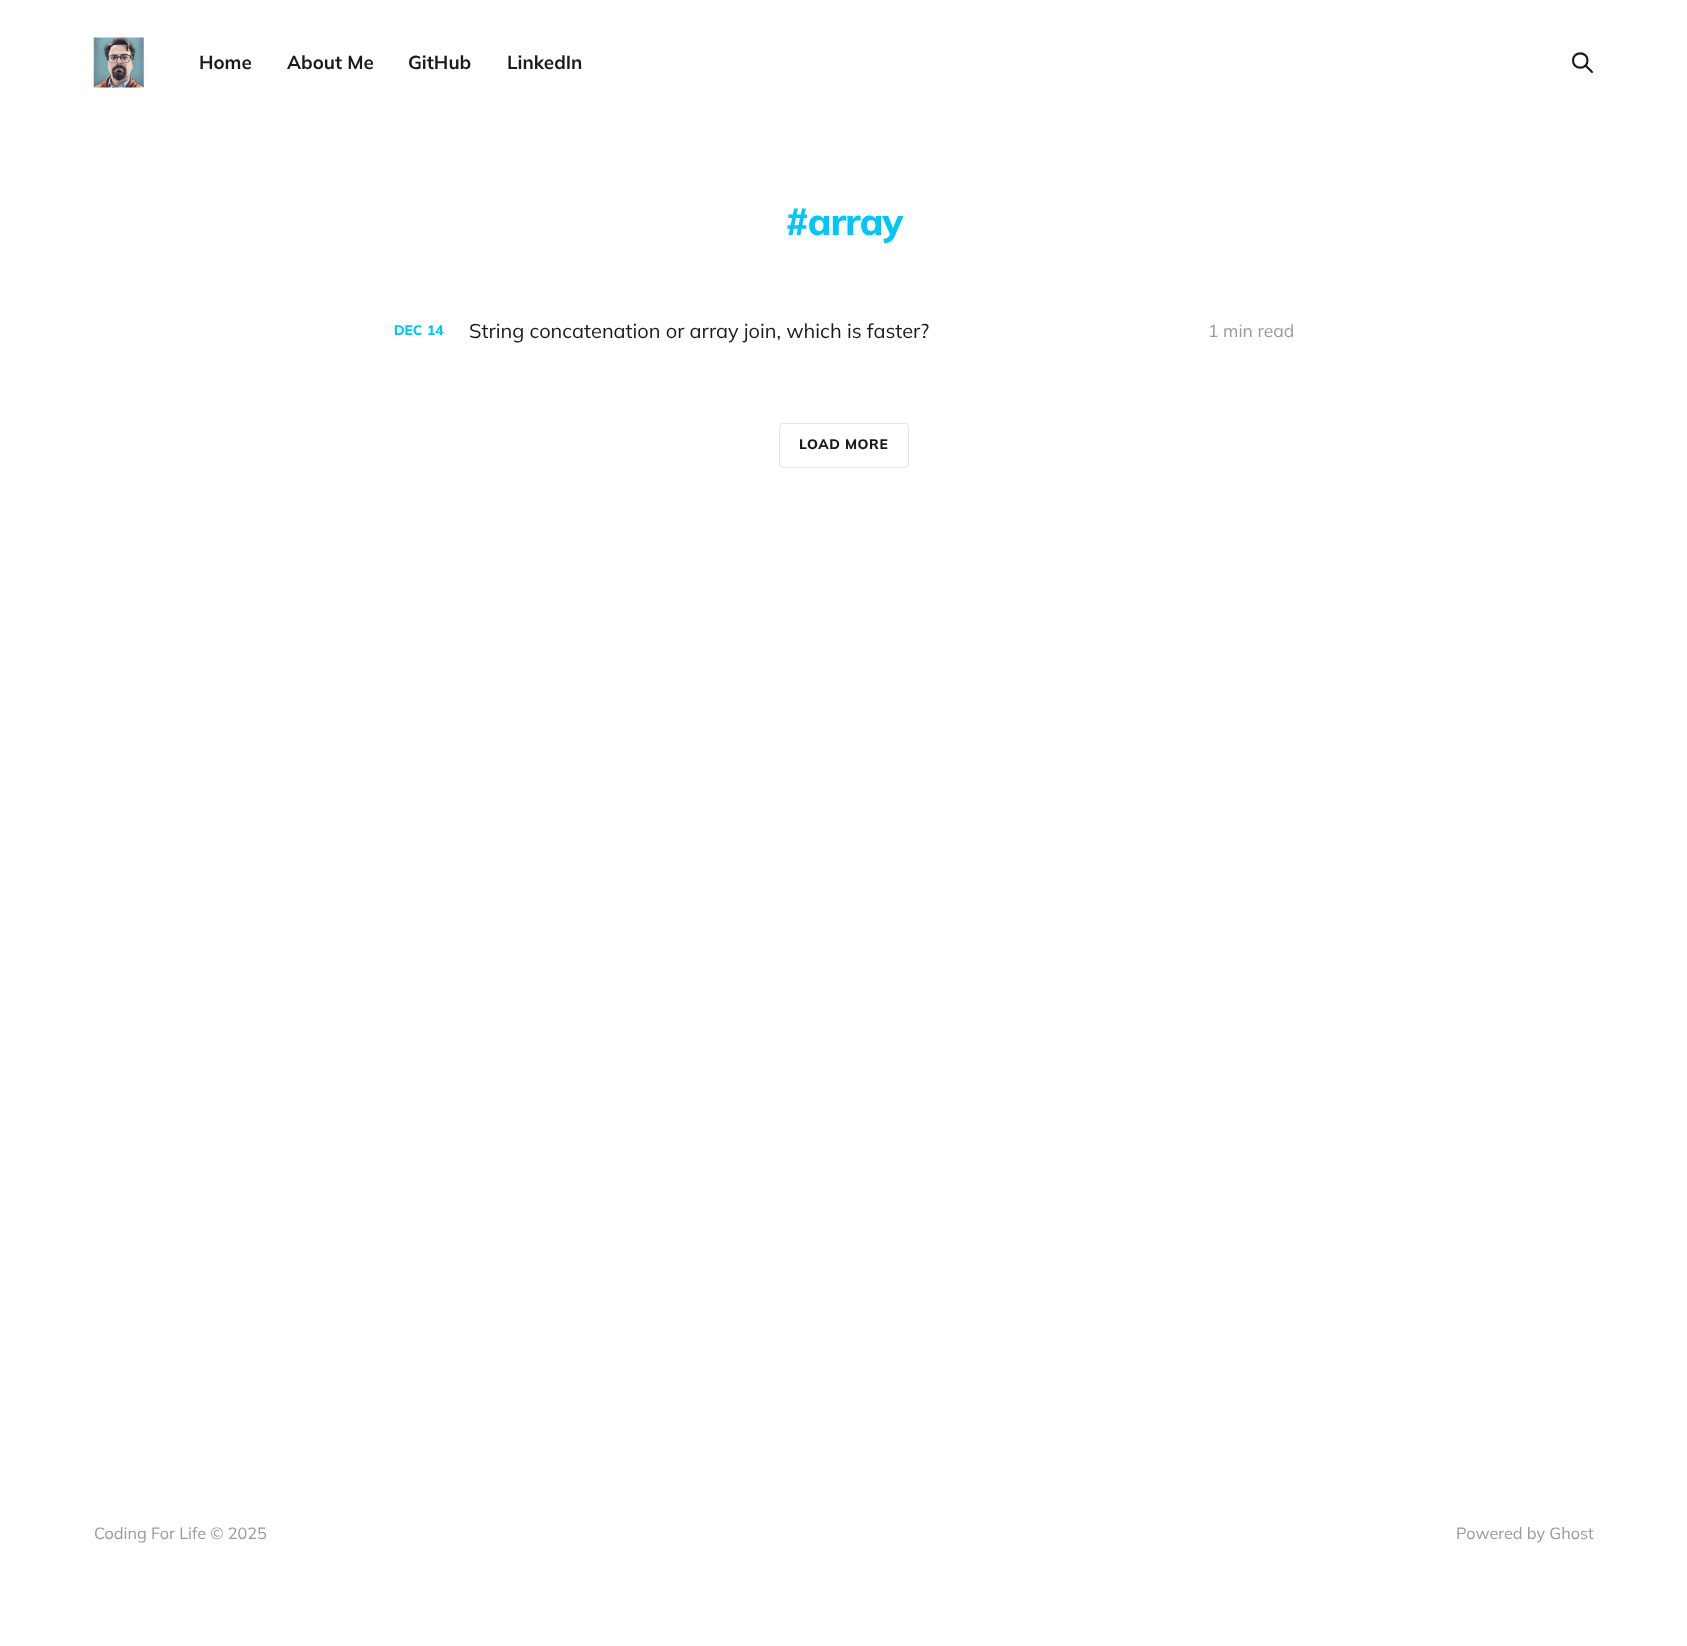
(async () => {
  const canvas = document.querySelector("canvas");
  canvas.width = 1687;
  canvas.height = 1646;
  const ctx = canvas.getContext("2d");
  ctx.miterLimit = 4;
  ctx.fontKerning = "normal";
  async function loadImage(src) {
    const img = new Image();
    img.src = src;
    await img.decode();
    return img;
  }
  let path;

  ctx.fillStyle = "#ffffff";
  ctx.fillRect(0, 0, 1687, 1646);
  ctx.drawImage(await loadImage("img/1.png"), 93, 37, 51, 51);
  path = new Path2D("M1592 72L1585.5 65.5M1587.5 60.5C1587.5 70 1573 70 1573 60.5C1573 51 1587.5 51 1587.5 60.5Z");
  ctx.strokeStyle = "#1a1a1a";
  ctx.lineWidth = 2.1;
  ctx.lineCap = "round";
  ctx.lineJoin = "round";
  ctx.stroke(path);
  ctx.beginPath();
  ctx.roundRect(779.5, 423.5, 129, 44, 3.5);
  ctx.strokeStyle = "#e6e6e6";
  ctx.lineWidth = 1;
  ctx.lineJoin = "miter";
  ctx.stroke();
  ctx.font = "200 18.75px Mulish";
  ctx.fillStyle = "#1a1a1a";
  for (const [text, x, y] of [
    ["Home", 199, 69],
    ["About Me", 287, 69],
    ["GitHub", 408, 69],
    ["LinkedIn", 507, 69],
  ]) {
    ctx.fillText(text, x, y);
  }
  ctx.letterSpacing = "-0.75px";
  ctx.font = "200 37.5px 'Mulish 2'";
  ctx.fillStyle = "#01c7f9";
  ctx.fillText("#array", 786, 235);
  ctx.letterSpacing = "0px";
  ctx.font = "200 13.75px 'Mulish 2'";
  ctx.fillText("DEC", 394, 335);
  ctx.fillText("14", 427, 335);
  ctx.font = "200 20px 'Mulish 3'";
  ctx.fillStyle = "#1a1a1a";
  ctx.fillText("String concatenation or array join, which is faster?", 469, 338);
  ctx.font = "200 17.5px 'Mulish 3'";
  ctx.fillStyle = "#999999";
  ctx.fillText("1 min read", 1208, 337);
  ctx.letterSpacing = "0.6px";
  ctx.font = "200 13.75px 'Mulish 2'";
  ctx.fillStyle = "#1a1a1a";
  ctx.fillText("LOAD MORE", 799, 449);
  ctx.letterSpacing = "0px";
  ctx.font = "200 16.25px 'Mulish 3'";
  ctx.fillStyle = "#999999";
  ctx.fillText("Coding For Life © 2025", 94, 1539);
  ctx.fillText("Powered by Ghost", 1456, 1539);
})();
